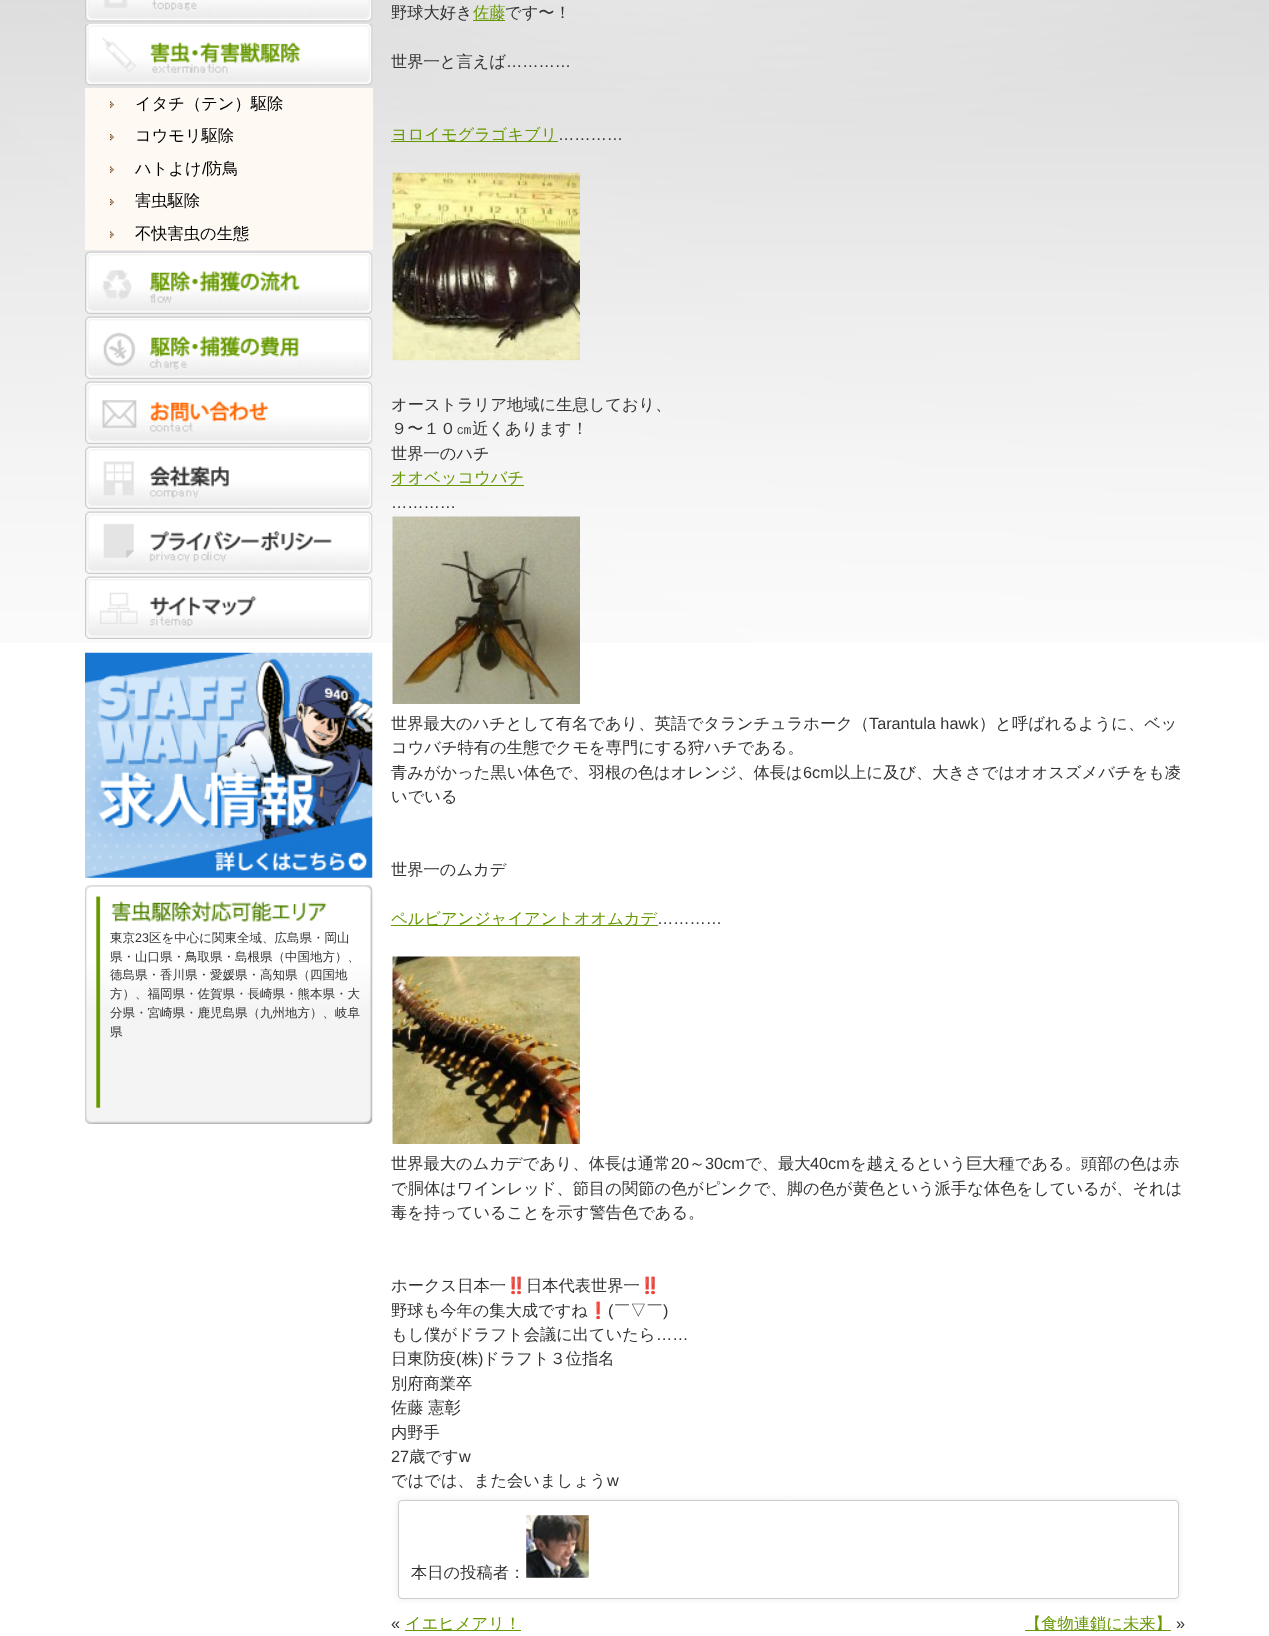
(async () => {
  const canvas = document.querySelector("canvas");
  canvas.width = 1269;
  canvas.height = 1636;
  const ctx = canvas.getContext("2d");
  ctx.miterLimit = 4;
  ctx.fontKerning = "normal";
  async function loadImage(src) {
    const img = new Image();
    img.src = src;
    await img.decode();
    return img;
  }

  ctx.fillStyle = "#ffffff";
  ctx.fillRect(0, 0, 1269, 1636);
  ctx.drawImage(await loadImage("img/1.png"), 0, 0, 1269, 643);
  ctx.drawImage(await loadImage("img/2.png"), 85, 0, 288, 22);
  ctx.drawImage(await loadImage("img/3.png"), 85, 24, 288, 62);
  ctx.fillStyle = "#fff9f4";
  ctx.fillRect(85, 88, 288, 162);
  ctx.drawImage(await loadImage("img/4.png"), 110, 101, 4, 7);
  ctx.drawImage(await loadImage("img/5.png"), 110, 134, 4, 7);
  ctx.drawImage(await loadImage("img/4.png"), 110, 166, 4, 7);
  ctx.drawImage(await loadImage("img/5.png"), 110, 199, 4, 7);
  ctx.drawImage(await loadImage("img/4.png"), 110, 231, 4, 7);
  ctx.drawImage(await loadImage("img/6.png"), 85, 251, 288, 63);
  ctx.drawImage(await loadImage("img/7.png"), 85, 316, 288, 63);
  ctx.drawImage(await loadImage("img/8.png"), 85, 381, 288, 63);
  ctx.drawImage(await loadImage("img/9.png"), 85, 446, 288, 63);
  ctx.drawImage(await loadImage("img/10.png"), 85, 511, 288, 63);
  ctx.drawImage(await loadImage("img/11.png"), 85, 576, 288, 63);
  ctx.drawImage(await loadImage("img/12.png"), 85, 652, 288, 226);
  ctx.drawImage(await loadImage("img/13.png"), 85, 885, 288, 239);
  ctx.fillStyle = "#669900";
  ctx.fillRect(473, 20, 32, 1);
  ctx.fillRect(391, 141, 167, 1);
  ctx.drawImage(await loadImage("img/14.png"), 392, 172, 188, 189);
  ctx.fillRect(391, 485, 133, 1);
  ctx.drawImage(await loadImage("img/15.png"), 392, 516, 188, 188);
  ctx.fillRect(391, 925, 267, 1);
  ctx.drawImage(await loadImage("img/16.png"), 392, 956, 188, 188);
  ctx.fillStyle = "rgba(50, 50, 50, 0.1)";
  ctx.filter = "blur(3px)";
  ctx.beginPath();
  ctx.roundRect(398, 1500, 781, 99, 4);
  ctx.fill();
  ctx.filter = "none";
  ctx.fillStyle = "#ffffff";
  ctx.beginPath();
  ctx.roundRect(398.5, 1500.5, 780, 98, 3.5);
  ctx.fill();
  ctx.strokeStyle = "#cccccc";
  ctx.stroke();
  ctx.drawImage(await loadImage("img/17.png"), 526, 1515, 63, 63);
  ctx.fillStyle = "#669900";
  ctx.fillRect(405, 1630, 116, 1);
  ctx.fillRect(1025, 1630, 146, 1);
  ctx.font = "500 16.25px WenQuanYi Zen Hei";
  ctx.fillStyle = "#000000";
  for (const [text, x, y] of [
    ["イタチ（テン）駆除", 135, 109],
    ["コウモリ駆除", 135, 141],
    ["ハトよけ", 135, 174],
  ]) {
    ctx.fillText(text, x, y);
  }
  ctx.font = "16.25px Liberation Sans";
  ctx.fillText("/", 202, 174);
  ctx.font = "500 16.25px WenQuanYi Zen Hei";
  for (const [text, x, y] of [
    ["防鳥", 206, 174],
    ["害虫駆除", 135, 206],
    ["不快害虫の生態", 135, 239],
  ]) {
    ctx.fillText(text, x, y);
  }
  ctx.font = "500 12.5px WenQuanYi Zen Hei";
  ctx.fillStyle = "#333333";
  ctx.fillText("東京", 110, 942);
  ctx.font = "12.5px Liberation Sans";
  ctx.fillText("23", 135, 942);
  ctx.font = "500 12.5px WenQuanYi Zen Hei";
  for (const [text, x, y] of [
    ["区を中心に関東全域、広島県・岡山", 149, 942],
    ["県・山口県・鳥取県・島根県（中国地方）、", 110, 961],
    ["徳島県・香川県・愛媛県・高知県（四国地", 110, 979],
    ["方）、福岡県・佐賀県・長崎県・熊本県・大", 110, 998],
    ["分県・宮崎県・鹿児島県（九州地方）、岐阜", 110, 1017],
    ["県", 110, 1036],
  ]) {
    ctx.fillText(text, x, y);
  }
  ctx.font = "500 16.25px WenQuanYi Zen Hei";
  ctx.fillText("野球大好き", 391, 18);
  ctx.fillStyle = "#669900";
  ctx.fillText("佐藤", 473, 18);
  ctx.fillStyle = "#333333";
  ctx.fillText("です〜！", 505, 18);
  ctx.fillText("世界一と言えば", 391, 67);
  ctx.font = "16.25px Liberation Sans";
  ctx.fillText("…………", 506, 67);
  ctx.font = "500 16.25px WenQuanYi Zen Hei";
  ctx.fillStyle = "#669900";
  ctx.fillText("ヨロイモグラゴキブリ", 391, 140);
  ctx.font = "16.25px Liberation Sans";
  ctx.fillStyle = "#333333";
  ctx.fillText("…………", 558, 140);
  ctx.font = "500 16.25px WenQuanYi Zen Hei";
  for (const [text, x, y] of [
    ["オーストラリア地域に生息しており、", 391, 410],
    ["９〜１０㎝近くあります！", 391, 434],
    ["世界一のハチ", 391, 459],
  ]) {
    ctx.fillText(text, x, y);
  }
  ctx.fillStyle = "#669900";
  ctx.fillText("オオベッコウバチ", 391, 483);
  ctx.font = "16.25px Liberation Sans";
  ctx.fillStyle = "#333333";
  ctx.fillText("…………", 391, 508);
  ctx.font = "500 16.25px WenQuanYi Zen Hei";
  ctx.fillText("世界最大のハチとして有名であり、英語でタランチュラホーク（", 391, 729);
  ctx.font = "16.25px Liberation Sans";
  ctx.fillText("Tarantula hawk", 869, 729);
  ctx.font = "500 16.25px WenQuanYi Zen Hei";
  for (const [text, x, y] of [
    ["）と呼ばれるように、ベッ", 979, 729],
    ["コウバチ特有の生態でクモを専門にする狩ハチである。", 391, 753],
    ["青みがかった黒い体色で、羽根の色はオレンジ、体長は", 391, 778],
  ]) {
    ctx.fillText(text, x, y);
  }
  ctx.font = "16.25px Liberation Sans";
  ctx.fillText("6cm", 803, 778);
  ctx.font = "500 16.25px WenQuanYi Zen Hei";
  for (const [text, x, y] of [
    ["以上に及び、大きさではオオスズメバチをも凌", 834, 778],
    ["いでいる", 391, 802],
    ["世界一のムカデ", 391, 875],
  ]) {
    ctx.fillText(text, x, y);
  }
  ctx.fillStyle = "#669900";
  ctx.fillText("ペルビアンジャイアントオオムカデ", 391, 924);
  ctx.font = "16.25px Liberation Sans";
  ctx.fillStyle = "#333333";
  ctx.fillText("…………", 657, 924);
  ctx.font = "500 16.25px WenQuanYi Zen Hei";
  ctx.fillText("世界最大のムカデであり、体長は通常", 391, 1169);
  ctx.font = "16.25px Liberation Sans";
  ctx.fillText("20", 671, 1169);
  ctx.font = "500 16.25px WenQuanYi Zen Hei";
  ctx.fillText("～", 689, 1169);
  ctx.font = "16.25px Liberation Sans";
  ctx.fillText("30cm", 705, 1169);
  ctx.font = "500 16.25px WenQuanYi Zen Hei";
  ctx.fillText("で、最大", 745, 1169);
  ctx.font = "16.25px Liberation Sans";
  ctx.fillText("40cm", 810, 1169);
  ctx.font = "500 16.25px WenQuanYi Zen Hei";
  for (const [text, x, y] of [
    ["を越えるという巨大種である。頭部の色は赤", 850, 1169],
    ["で胴体はワインレッド、節目の関節の色がピンクで、脚の色が黄色という派手な体色をしているが、それは", 391, 1194],
    ["毒を持っていることを示す警告色である。", 391, 1218],
    ["ホークス日本一", 391, 1291],
  ]) {
    ctx.fillText(text, x, y);
  }
  ctx.font = "16.25px Noto Color Emoji";
  ctx.fillText("‼️", 506, 1291);
  ctx.font = "500 16.25px WenQuanYi Zen Hei";
  ctx.fillText("日本代表世界一", 526, 1291);
  ctx.font = "16.25px Noto Color Emoji";
  ctx.fillText("‼️", 640, 1291);
  ctx.font = "500 16.25px WenQuanYi Zen Hei";
  ctx.fillText("野球も今年の集大成ですね", 391, 1316);
  ctx.font = "16.25px Noto Color Emoji";
  ctx.fillText("❗️", 588, 1316);
  ctx.font = "16.25px Liberation Sans";
  ctx.fillText("(", 608, 1316);
  ctx.font = "500 16.25px WenQuanYi Zen Hei";
  ctx.fillText("￣▽￣", 614, 1316);
  ctx.font = "16.25px Liberation Sans";
  ctx.fillText(")", 663, 1316);
  ctx.font = "500 16.25px WenQuanYi Zen Hei";
  ctx.fillText("もし僕がドラフト会議に出ていたら", 391, 1340);
  ctx.font = "16.25px Liberation Sans";
  ctx.fillText("……", 656, 1340);
  ctx.font = "500 16.25px WenQuanYi Zen Hei";
  ctx.fillText("日東防疫", 391, 1364);
  ctx.font = "16.25px Liberation Sans";
  ctx.fillText("(", 456, 1364);
  ctx.font = "500 16.25px WenQuanYi Zen Hei";
  ctx.fillText("株", 462, 1364);
  ctx.font = "16.25px Liberation Sans";
  ctx.fillText(")", 478, 1364);
  ctx.font = "500 16.25px WenQuanYi Zen Hei";
  for (const [text, x, y] of [
    ["ドラフト３位指名", 483, 1364],
    ["別府商業卒", 391, 1389],
    ["佐藤 憲彰", 391, 1413],
    ["内野手", 391, 1438],
  ]) {
    ctx.fillText(text, x, y);
  }
  ctx.font = "16.25px Liberation Sans";
  ctx.fillText("27", 391, 1462);
  ctx.font = "500 16.25px WenQuanYi Zen Hei";
  ctx.fillText("歳です", 409, 1462);
  ctx.font = "16.25px Liberation Sans";
  ctx.fillText("w", 459, 1462);
  ctx.font = "500 16.25px WenQuanYi Zen Hei";
  ctx.fillText("ではでは、また会いましょう", 391, 1486);
  ctx.font = "16.25px Liberation Sans";
  ctx.fillText("w", 607, 1486);
  ctx.font = "500 16.25px WenQuanYi Zen Hei";
  ctx.fillText("本日の投稿者：", 411, 1578);
  ctx.font = "16.25px Liberation Sans";
  ctx.fillText("«", 391, 1629);
  ctx.font = "500 16.25px WenQuanYi Zen Hei";
  ctx.fillStyle = "#669900";
  ctx.fillText("イエヒメアリ！", 405, 1629);
  ctx.fillText("【食物連鎖に未来】", 1025, 1629);
  ctx.font = "16.25px Liberation Sans";
  ctx.fillStyle = "#333333";
  ctx.fillText("»", 1176, 1629);
})();
